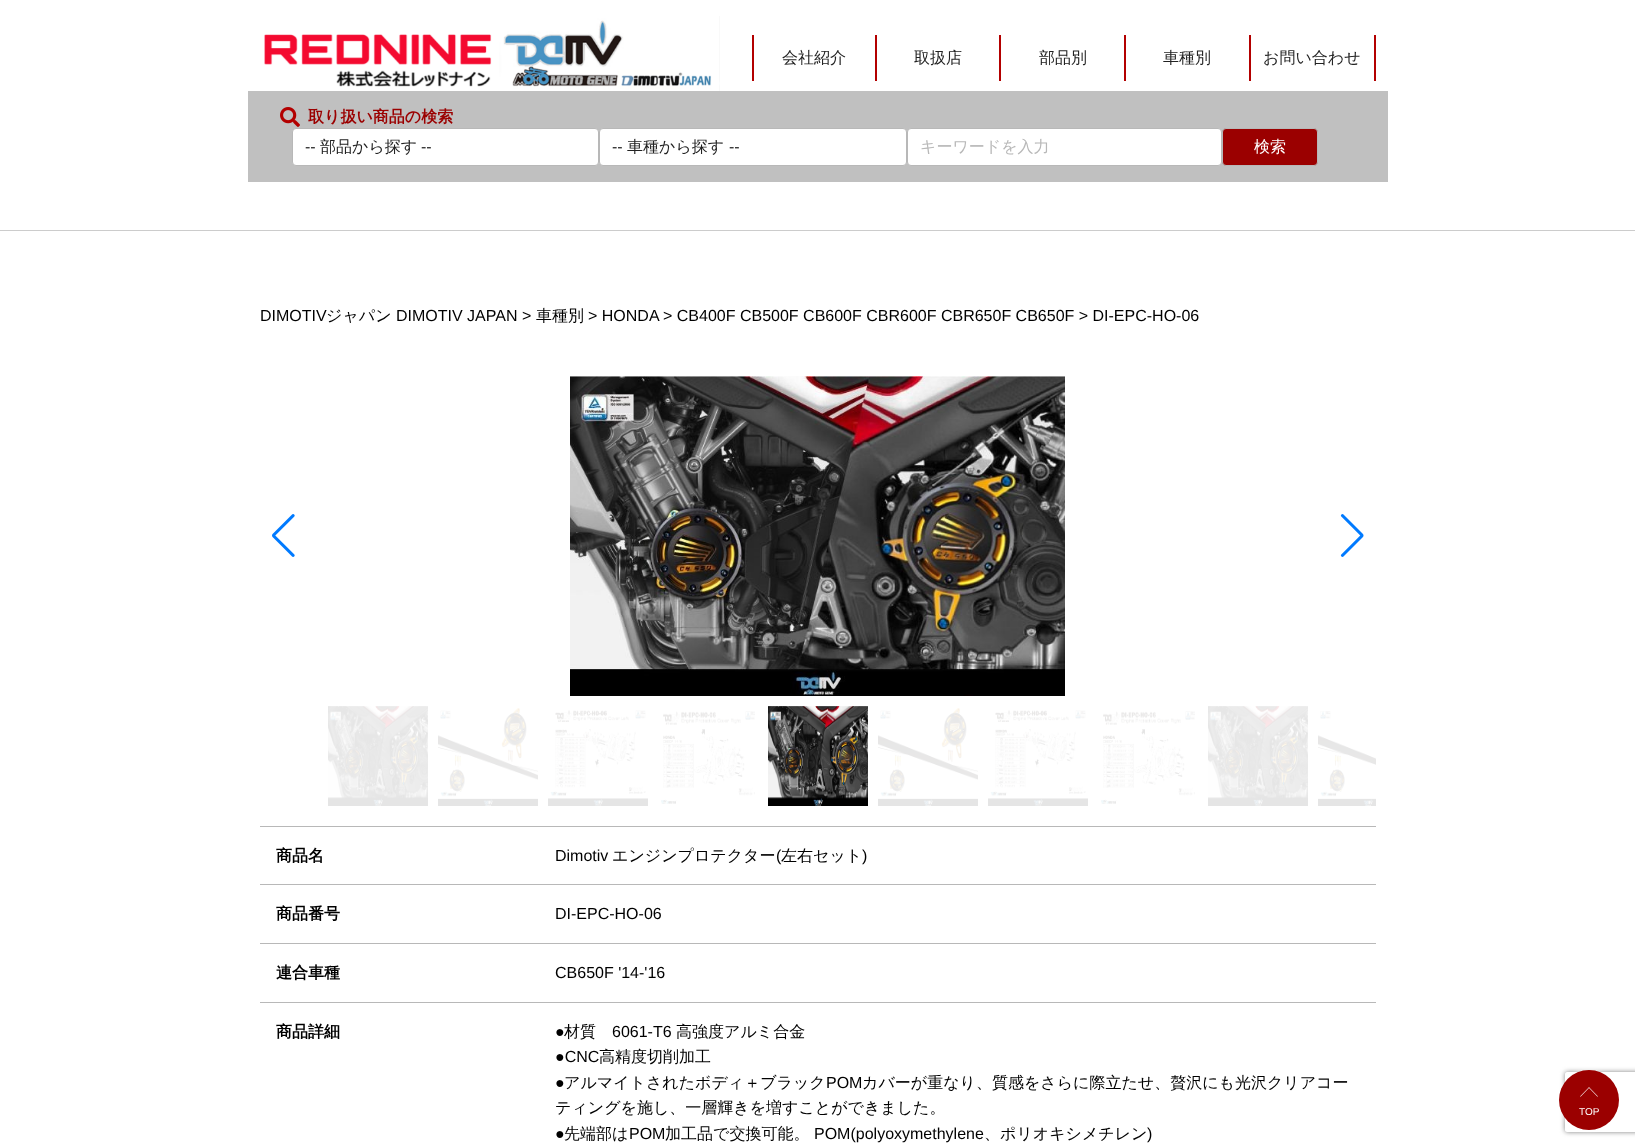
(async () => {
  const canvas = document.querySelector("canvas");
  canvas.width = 1635;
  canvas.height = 1146;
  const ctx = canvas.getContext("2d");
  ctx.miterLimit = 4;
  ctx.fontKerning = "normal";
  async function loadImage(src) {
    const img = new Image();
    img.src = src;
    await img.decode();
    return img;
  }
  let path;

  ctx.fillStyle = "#ffffff";
  ctx.fillRect(0, 0, 1635, 1146);
  ctx.fillStyle = "#cccccc";
  ctx.fillRect(0, 230, 1635, 1);
  ctx.drawImage(await loadImage("img/1.png"), 264, 16, 456, 75);
  for (const [x, y, w, h, color] of [
    [875, 35, 2, 46, "#b30000"],
    [752, 35, 2, 46, "#b30000"],
    [999, 35, 2, 46, "#b30000"],
    [1124, 35, 2, 46, "#b30000"],
    [1249, 35, 2, 46, "#b30000"],
    [1374, 35, 2, 46, "#b30000"],
    [248, 91, 1140, 91, "#c0c0c0"],
  ]) {
    ctx.fillStyle = color;
    ctx.fillRect(x, y, w, h);
  }
  ctx.drawImage(await loadImage("img/2.png"), 280, 107, 20, 20);
  ctx.fillStyle = "#ffffff";
  ctx.beginPath();
  ctx.roundRect(292.5, 128.5, 306, 37, 3.5);
  ctx.fill();
  ctx.strokeStyle = "#b8b8b8";
  ctx.stroke();
  ctx.beginPath();
  ctx.roundRect(599.5, 128.5, 307, 37, 3.5);
  ctx.fill();
  ctx.stroke();
  ctx.beginPath();
  ctx.roundRect(907.5, 128.5, 314, 37, 3.5);
  ctx.fill();
  ctx.stroke();
  ctx.fillStyle = "#9b0000";
  ctx.beginPath();
  ctx.roundRect(1222.5, 128.5, 95, 37, 3.5);
  ctx.fill();
  ctx.stroke();
  ctx.drawImage(await loadImage("img/3.png"), 272, 514, 23, 43);
  ctx.drawImage(await loadImage("img/4.png"), 570, 376, 495, 320);
  ctx.drawImage(await loadImage("img/5.png"), 1340, 514, 24, 43);
  ctx.drawImage(await loadImage("img/6.png"), 328, 706, 100, 100);
  ctx.drawImage(await loadImage("img/7.png"), 438, 708, 100, 98);
  ctx.drawImage(await loadImage("img/8.png"), 548, 710, 100, 96);
  ctx.drawImage(await loadImage("img/9.png"), 661, 711, 94, 93);
  ctx.drawImage(await loadImage("img/10.png"), 768, 706, 100, 100);
  ctx.drawImage(await loadImage("img/7.png"), 878, 708, 100, 98);
  ctx.drawImage(await loadImage("img/8.png"), 988, 710, 100, 96);
  ctx.drawImage(await loadImage("img/9.png"), 1101, 711, 94, 93);
  ctx.drawImage(await loadImage("img/6.png"), 1208, 706, 100, 100);
  ctx.drawImage(await loadImage("img/11.png"), 1318, 711, 58, 95);
  for (const [x, y, w, h, color] of [
    [260, 826, 1116, 1, "#b8b8b8"],
    [260, 884, 1116, 1, "#b8b8b8"],
    [260, 943, 1116, 1, "#b8b8b8"],
    [260, 1002, 1116, 1, "#b8b8b8"],
  ]) {
    ctx.fillStyle = color;
    ctx.fillRect(x, y, w, h);
  }
  ctx.save();
  path = new Path2D("M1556 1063H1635V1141H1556ZM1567 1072H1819C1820 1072 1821 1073 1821 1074V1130C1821 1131 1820 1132 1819 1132H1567C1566 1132 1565 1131 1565 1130V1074C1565 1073 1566 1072 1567 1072Z");
  ctx.clip(path, "evenodd");
  ctx.fillStyle = "#808080";
  ctx.filter = "blur(2.5px)";
  ctx.beginPath();
  ctx.roundRect(1565, 1072, 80, 60, 2);
  ctx.fill();
  ctx.filter = "none";
  ctx.restore();
  ctx.fillStyle = "rgba(255, 255, 255, 0.7)";
  ctx.filter = "blur(2px)";
  ctx.beginPath();
  ctx.roundRect(1559, 1070, 60, 60, 30);
  ctx.fill();
  ctx.filter = "none";
  ctx.fillStyle = "#9b0000";
  ctx.beginPath();
  ctx.arc(1589, 1100, 30, 0, Math.PI * 2);
  ctx.fill();
  ctx.drawImage(await loadImage("img/12.png"), 1580, 1087, 18, 10);
  ctx.font = "500 16px WenQuanYi Zen Hei";
  ctx.fillStyle = "#222222";
  for (const [text, x, y] of [
    ["会社紹介", 782, 63],
    ["取扱店", 914, 63],
    ["部品別", 1039, 63],
    ["車種別", 1163, 63],
    ["お問い合わせ", 1263, 63],
  ]) {
    ctx.fillText(text, x, y);
  }
  ctx.font = "bold 16px WenQuanYi Zen Hei";
  ctx.fillStyle = "#9b0000";
  ctx.fillText("取り扱い商品の検索", 308, 122);
  ctx.font = "16px Liberation Sans";
  ctx.fillStyle = "#222222";
  ctx.fillText("--", 305, 152);
  ctx.font = "500 16px WenQuanYi Zen Hei";
  ctx.fillText("部品から探す", 320, 152);
  ctx.font = "16px Liberation Sans";
  ctx.fillText("--", 421, 152);
  ctx.fillText("--", 612, 152);
  ctx.font = "500 16px WenQuanYi Zen Hei";
  ctx.fillText("車種から探す", 627, 152);
  ctx.font = "16px Liberation Sans";
  ctx.fillText("--", 729, 152);
  ctx.font = "500 16px WenQuanYi Zen Hei";
  ctx.fillStyle = "#b8b8b8";
  ctx.fillText("キーワードを入力", 920, 152);
  ctx.fillStyle = "#ffffff";
  ctx.fillText("検索", 1254, 152);
  ctx.font = "16px Liberation Sans";
  ctx.fillStyle = "#000000";
  ctx.fillText("DIMOTIV", 260, 321);
  ctx.font = "500 16px WenQuanYi Zen Hei";
  ctx.fillText("ジャパン", 326, 321);
  ctx.font = "16px Liberation Sans";
  ctx.fillText("DIMOTIV JAPAN >", 396, 321);
  ctx.font = "500 16px WenQuanYi Zen Hei";
  ctx.fillText("車種別", 536, 321);
  ctx.font = "16px Liberation Sans";
  ctx.fillText("> HONDA", 588, 321);
  ctx.fillText("> CB400F CB500F CB600F CBR600F CBR650F CB650F > DI-EPC-HO-06", 663, 321);
  ctx.font = "bold 16px WenQuanYi Zen Hei";
  ctx.fillText("商品名", 276, 861);
  ctx.font = "16px Liberation Sans";
  ctx.fillText("Dimotiv", 555, 861);
  ctx.font = "500 16px WenQuanYi Zen Hei";
  ctx.fillText("エンジンプロテクター", 612, 861);
  ctx.font = "16px Liberation Sans";
  ctx.fillText("(", 776, 861);
  ctx.font = "500 16px WenQuanYi Zen Hei";
  ctx.fillText("左右セット", 781, 861);
  ctx.font = "16px Liberation Sans";
  ctx.fillText(")", 862, 861);
  ctx.font = "bold 16px WenQuanYi Zen Hei";
  ctx.fillText("商品番号", 276, 919);
  ctx.font = "16px Liberation Sans";
  ctx.fillText("DI-EPC-HO-06", 555, 919);
  ctx.font = "bold 16px WenQuanYi Zen Hei";
  ctx.fillText("連合車種", 276, 978);
  ctx.font = "16px Liberation Sans";
  ctx.fillText("CB650F '14-'16", 555, 978);
  ctx.font = "bold 16px WenQuanYi Zen Hei";
  ctx.fillText("商品詳細", 276, 1037);
  ctx.font = "16px Liberation Sans";
  ctx.fillText("●", 555, 1037);
  ctx.font = "500 16px WenQuanYi Zen Hei";
  ctx.fillText("材質", 564, 1037);
  ctx.font = "16px Liberation Sans";
  ctx.fillText("6061-T6", 612, 1037);
  ctx.font = "500 16px WenQuanYi Zen Hei";
  ctx.fillText("高強度アルミ合金", 676, 1037);
  ctx.font = "16px Liberation Sans";
  ctx.fillText("●CNC", 555, 1062);
  ctx.font = "500 16px WenQuanYi Zen Hei";
  ctx.fillText("高精度切削加工", 599, 1062);
  ctx.font = "16px Liberation Sans";
  ctx.fillText("●", 555, 1088);
  ctx.font = "500 16px WenQuanYi Zen Hei";
  ctx.fillText("アルマイトされたボディ＋ブラック", 564, 1088);
  ctx.font = "16px Liberation Sans";
  ctx.fillText("POM", 826, 1088);
  ctx.font = "500 16px WenQuanYi Zen Hei";
  ctx.fillText("カバーが重なり、質感をさらに際立たせ、贅沢にも光沢クリアコー", 862, 1088);
  ctx.fillText("ティングを施し、一層輝きを増すことができました。", 555, 1113);
  ctx.font = "16px Liberation Sans";
  ctx.fillText("●", 555, 1139);
  ctx.font = "500 16px WenQuanYi Zen Hei";
  ctx.fillText("先端部は", 564, 1139);
  ctx.font = "16px Liberation Sans";
  ctx.fillText("POM", 629, 1139);
  ctx.font = "500 16px WenQuanYi Zen Hei";
  ctx.fillText("加工品で交換可能。", 665, 1139);
  ctx.font = "16px Liberation Sans";
  ctx.fillText("POM(polyoxymethylene", 814, 1139);
  ctx.font = "500 16px WenQuanYi Zen Hei";
  ctx.fillText("、ポリオキシメチレン", 984, 1139);
  ctx.font = "16px Liberation Sans";
  ctx.fillText(")", 1147, 1139);
  ctx.font = "10px Liberation Sans";
  ctx.fillStyle = "#ffffff";
  ctx.fillText("TOP", 1579, 1115);
})();
